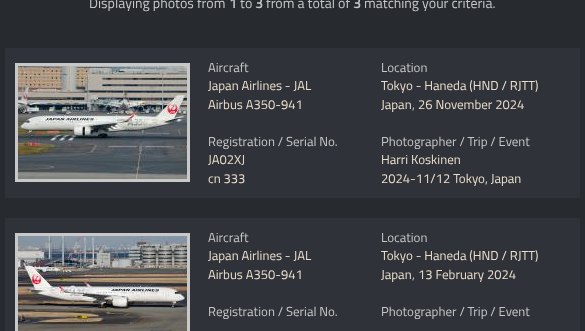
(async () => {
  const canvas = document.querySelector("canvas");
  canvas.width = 585;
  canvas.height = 331;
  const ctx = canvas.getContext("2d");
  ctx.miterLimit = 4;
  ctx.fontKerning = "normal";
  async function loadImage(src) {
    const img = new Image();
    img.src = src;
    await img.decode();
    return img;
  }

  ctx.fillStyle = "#272b30";
  ctx.fillRect(0, 0, 585, 331);
  ctx.fillStyle = "#2f3238";
  ctx.fillRect(5, 48, 575, 150);
  ctx.strokeStyle = "#c8c8c8";
  ctx.lineWidth = 3;
  ctx.strokeRect(16.5, 64.5, 172, 116);
  ctx.drawImage(await loadImage("img/1.png"), 18, 66, 169, 113);
  ctx.fillRect(5, 218, 575, 113);
  ctx.strokeRect(16.5, 234.5, 172, 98);
  ctx.drawImage(await loadImage("img/2.png"), 18, 236, 169, 95);
  ctx.font = "14px Titillium Web";
  ctx.fillStyle = "#c8c8c8";
  ctx.fillText("Displaying photos from", 89, 8);
  ctx.font = "bold 14px Titillium Web";
  ctx.fillText("1", 229, 8);
  ctx.font = "14px Titillium Web";
  ctx.fillText("to", 240, 8);
  ctx.font = "bold 14px Titillium Web";
  ctx.fillText("3", 255, 8);
  ctx.font = "14px Titillium Web";
  ctx.fillText("from a total of", 266, 8);
  ctx.font = "bold 14px Titillium Web";
  ctx.fillText("3", 353, 8);
  ctx.font = "14px Titillium Web";
  ctx.fillText("matching your criteria.", 364, 8);
  ctx.font = "13px Titillium Web";
  ctx.fillText("Aircraft", 208, 72);
  ctx.fillStyle = "#eddfcc";
  ctx.fillText("Japan Airlines - JAL", 208, 90);
  ctx.fillText("Airbus A350-941", 208, 109);
  ctx.fillStyle = "#c8c8c8";
  ctx.fillText("Registration / Serial No.", 208, 146);
  ctx.fillStyle = "#eddfcc";
  ctx.fillText("JA02XJ", 208, 164);
  ctx.fillText("cn 333", 208, 183);
  ctx.fillStyle = "#c8c8c8";
  ctx.fillText("Location", 381, 72);
  ctx.fillStyle = "#eddfcc";
  ctx.fillText("Tokyo - Haneda (HND / RJTT)", 381, 90);
  ctx.fillText("Japan", 381, 109);
  ctx.fillStyle = "#c8c8c8";
  ctx.fillText(",", 412, 109);
  ctx.fillStyle = "#eddfcc";
  ctx.fillText("26 November 2024", 418, 109);
  ctx.fillStyle = "#c8c8c8";
  ctx.fillText("Photographer / Trip / Event", 381, 146);
  ctx.fillStyle = "#eddfcc";
  ctx.fillText("Harri Koskinen", 381, 164);
  ctx.fillText("2024-11/12 Tokyo, Japan", 381, 183);
  ctx.fillStyle = "#c8c8c8";
  ctx.fillText("Aircraft", 208, 242);
  ctx.fillStyle = "#eddfcc";
  ctx.fillText("Japan Airlines - JAL", 208, 260);
  ctx.fillText("Airbus A350-941", 208, 279);
  ctx.fillStyle = "#c8c8c8";
  ctx.fillText("Registration / Serial No.", 208, 316);
  ctx.fillText("Location", 381, 242);
  ctx.fillStyle = "#eddfcc";
  ctx.fillText("Tokyo - Haneda (HND / RJTT)", 381, 260);
  ctx.fillText("Japan", 381, 279);
  ctx.fillStyle = "#c8c8c8";
  ctx.fillText(",", 412, 279);
  ctx.fillStyle = "#eddfcc";
  ctx.fillText("13 February 2024", 418, 279);
  ctx.fillStyle = "#c8c8c8";
  ctx.fillText("Photographer / Trip / Event", 381, 316);
})();
